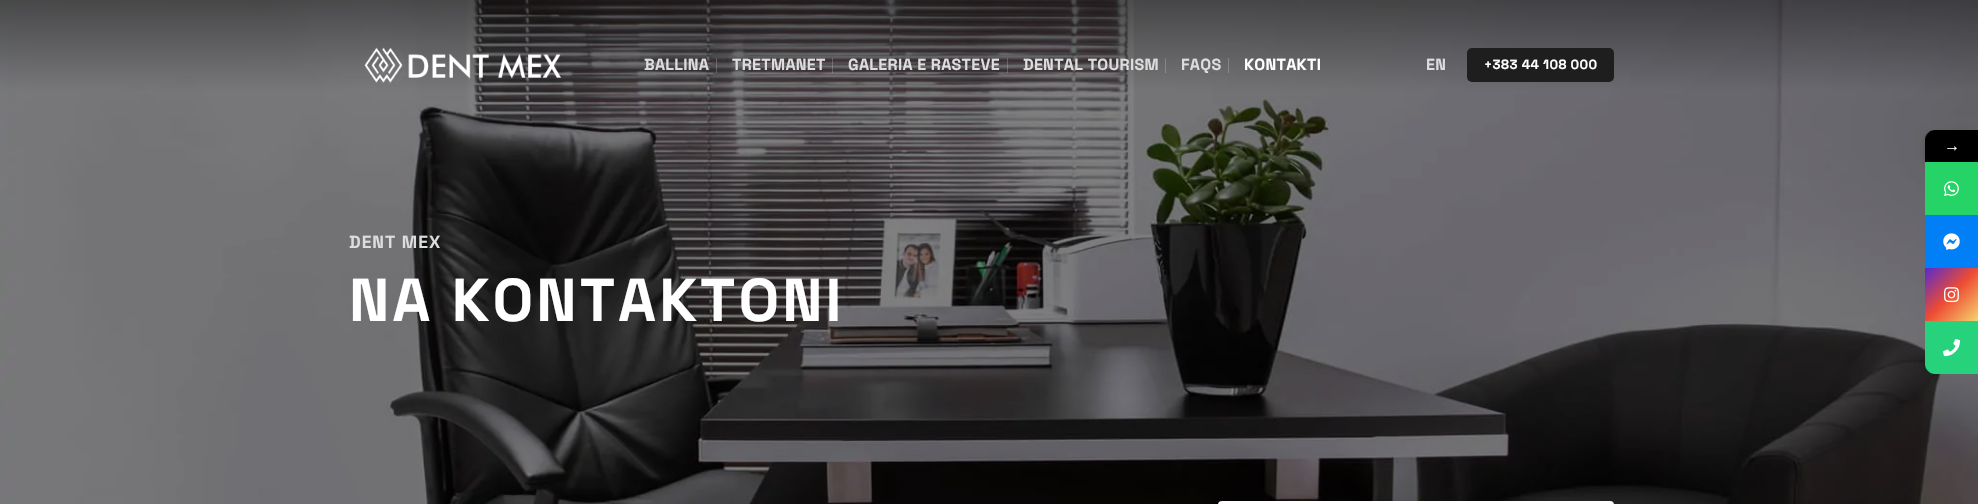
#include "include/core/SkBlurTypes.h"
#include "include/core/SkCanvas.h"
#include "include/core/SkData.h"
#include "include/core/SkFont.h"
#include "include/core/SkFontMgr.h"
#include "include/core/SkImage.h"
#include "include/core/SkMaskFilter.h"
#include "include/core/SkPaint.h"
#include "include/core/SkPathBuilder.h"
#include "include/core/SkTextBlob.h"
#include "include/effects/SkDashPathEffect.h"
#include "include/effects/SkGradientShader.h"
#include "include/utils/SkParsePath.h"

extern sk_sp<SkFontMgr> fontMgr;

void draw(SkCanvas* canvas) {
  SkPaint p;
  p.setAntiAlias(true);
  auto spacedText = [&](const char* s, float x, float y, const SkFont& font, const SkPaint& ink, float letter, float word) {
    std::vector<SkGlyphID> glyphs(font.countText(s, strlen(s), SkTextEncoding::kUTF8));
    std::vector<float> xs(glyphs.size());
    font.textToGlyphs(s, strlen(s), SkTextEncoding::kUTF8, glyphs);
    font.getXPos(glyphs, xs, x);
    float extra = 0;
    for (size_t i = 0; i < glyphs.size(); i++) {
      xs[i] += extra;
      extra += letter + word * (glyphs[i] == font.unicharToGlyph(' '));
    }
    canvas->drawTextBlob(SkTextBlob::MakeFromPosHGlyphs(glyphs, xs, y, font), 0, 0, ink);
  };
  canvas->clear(SK_ColorWHITE);
  canvas->drawImageRect(SkImages::DeferredFromEncodedData(SkData::MakeFromFileName("images/2.png")), SkRect::MakeLTRB(0, 0, 1978, 504), SkSamplingOptions());
  canvas->drawImageRect(SkImages::DeferredFromEncodedData(SkData::MakeFromFileName("images/1.png")), SkRect::MakeLTRB(364, 47, 561, 84), SkSamplingOptions());
  p.setColor(SkColorSetARGB(51, 255, 255, 255));
  canvas->drawRect(SkRect::MakeLTRB(716, 58, 717, 73), p);
  canvas->drawRect(SkRect::MakeLTRB(832, 58, 833, 73), p);
  canvas->drawRect(SkRect::MakeLTRB(1007, 58, 1008, 73), p);
  canvas->drawRect(SkRect::MakeLTRB(1165, 58, 1166, 73), p);
  canvas->drawRect(SkRect::MakeLTRB(1228, 58, 1229, 73), p);
  p.setColor(SkColorSetRGB(30, 30, 30));
  canvas->drawRoundRect(SkRect::MakeLTRB(1467, 48, 1614, 82), 5, 5, p);
  p.setColor(SK_ColorWHITE);
  canvas->drawRoundRect(SkRect::MakeLTRB(1218, 501, 1614, 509), 5, 5, p);
  p.setColor(SkColorSetARGB(41, 0, 0, 0));
  p.setMaskFilter(SkMaskFilter::MakeBlur(kNormal_SkBlurStyle, 3));
  canvas->drawRoundRect(SkRect::MakeLTRB(1925, 133, 1978, 165), 10, 10, p);
  p.setMaskFilter(nullptr);
  p.setColor(SK_ColorBLACK);
  canvas->drawPath(SkPathBuilder().moveTo(1935, 130).lineTo(1978, 130).lineTo(1978, 162).lineTo(1925, 162).lineTo(1925, 140).cubicTo(1925, 134.5f, 1929.5f, 130, 1935, 130).close().detach(), p);
  p.setColor(SkColorSetRGB(38, 211, 103));
  canvas->drawRect(SkRect::MakeLTRB(1925, 162, 1978, 215), p);
  canvas->drawImageRect(SkImages::DeferredFromEncodedData(SkData::MakeFromFileName("images/3.png")), SkRect::MakeLTRB(1944, 181, 1959, 196), SkSamplingOptions());
  p.setColor(SkColorSetRGB(0, 127, 247));
  canvas->drawRect(SkRect::MakeLTRB(1925, 215, 1978, 268), p);
  canvas->drawImageRect(SkImages::DeferredFromEncodedData(SkData::MakeFromFileName("images/4.png")), SkRect::MakeLTRB(1943, 233, 1960, 250), SkSamplingOptions());
  {
    const SkColor colors[] = {SkColorSetRGB(88, 43, 205), SkColorSetRGB(237, 76, 51), SkColorSetRGB(247, 211, 111)};
    const float stops[] = {0, 0.5f, 1};
    const SkPoint ends[] = {{1925, 268}, {1978, 321}};
    p.setShader(SkGradientShader::MakeLinear(ends, colors, stops, 3, SkTileMode::kClamp));
    p.setAlpha(255);
  }
  canvas->drawRect(SkRect::MakeLTRB(1925, 268, 1978, 321), p);
  canvas->drawImageRect(SkImages::DeferredFromEncodedData(SkData::MakeFromFileName("images/5.png")), SkRect::MakeLTRB(1944, 287, 1959, 303), SkSamplingOptions());
  p.setShader(nullptr);
  p.setColor(SkColorSetRGB(38, 211, 124));
  canvas->drawPath(SkPathBuilder().moveTo(1925, 321).lineTo(1978, 321).lineTo(1978, 374).lineTo(1935, 374).cubicTo(1929.5f, 374, 1925, 369.5f, 1925, 364).close().detach(), p);
  canvas->drawImageRect(SkImages::DeferredFromEncodedData(SkData::MakeFromFileName("images/6.png")), SkRect::MakeLTRB(1943, 339, 1960, 357), SkSamplingOptions());
  SkFont font1(fontMgr->matchFamilyStyle("Space Grotesk", SkFontStyle::Bold()), 16);
  font1.setSubpixel(true);
  p.setColor(SkColorSetRGB(221, 221, 222));
  spacedText("BALLINA", 644, 70, font1, p, 0.3f, 0);
  spacedText("TRETMANET", 732, 70, font1, p, 0.3f, 0);
  spacedText("GALERIA E RASTEVE", 848, 70, font1, p, 0.3f, 0);
  spacedText("DENTAL TOURISM", 1023, 70, font1, p, 0.3f, 0);
  spacedText("FAQS", 1181, 70, font1, p, 0.3f, 0);
  p.setColor(SK_ColorWHITE);
  spacedText("KONTAKTI", 1244, 70, font1, p, 0.3f, 0);
  p.setColor(SkColorSetRGB(221, 221, 222));
  spacedText("EN", 1426, 70, font1, p, 0.3f, 0);
  SkFont font2(fontMgr->matchFamilyStyle("Space Grotesk", SkFontStyle::Bold()), 13.25f);
  font2.setSubpixel(true);
  p.setColor(SK_ColorWHITE);
  spacedText("+383 44 108 000", 1484, 69, font2, p, 0.4f, 0);
  SkFont font3(fontMgr->matchFamilyStyle("Space Grotesk", SkFontStyle::Bold()), 17.5f);
  font3.setSubpixel(true);
  p.setColor(SkColorSetRGB(221, 221, 222));
  spacedText("DENT MEX", 349, 248, font3, p, 1, 0);
  SkFont font4(fontMgr->matchFamilyStyle("Space Grotesk", SkFontStyle::Bold()), 60.25f);
  font4.setSubpixel(true);
  p.setColor(SK_ColorWHITE);
  spacedText("NA KONTAKTONI", 349, 321, font4, p, 3, 0);
  SkFont font5(fontMgr->matchFamilyStyle("Liberation Serif", SkFontStyle::Normal()), 16);
  font5.setSubpixel(true);
  canvas->drawString("→", 1944, 151, font5, p);
}
